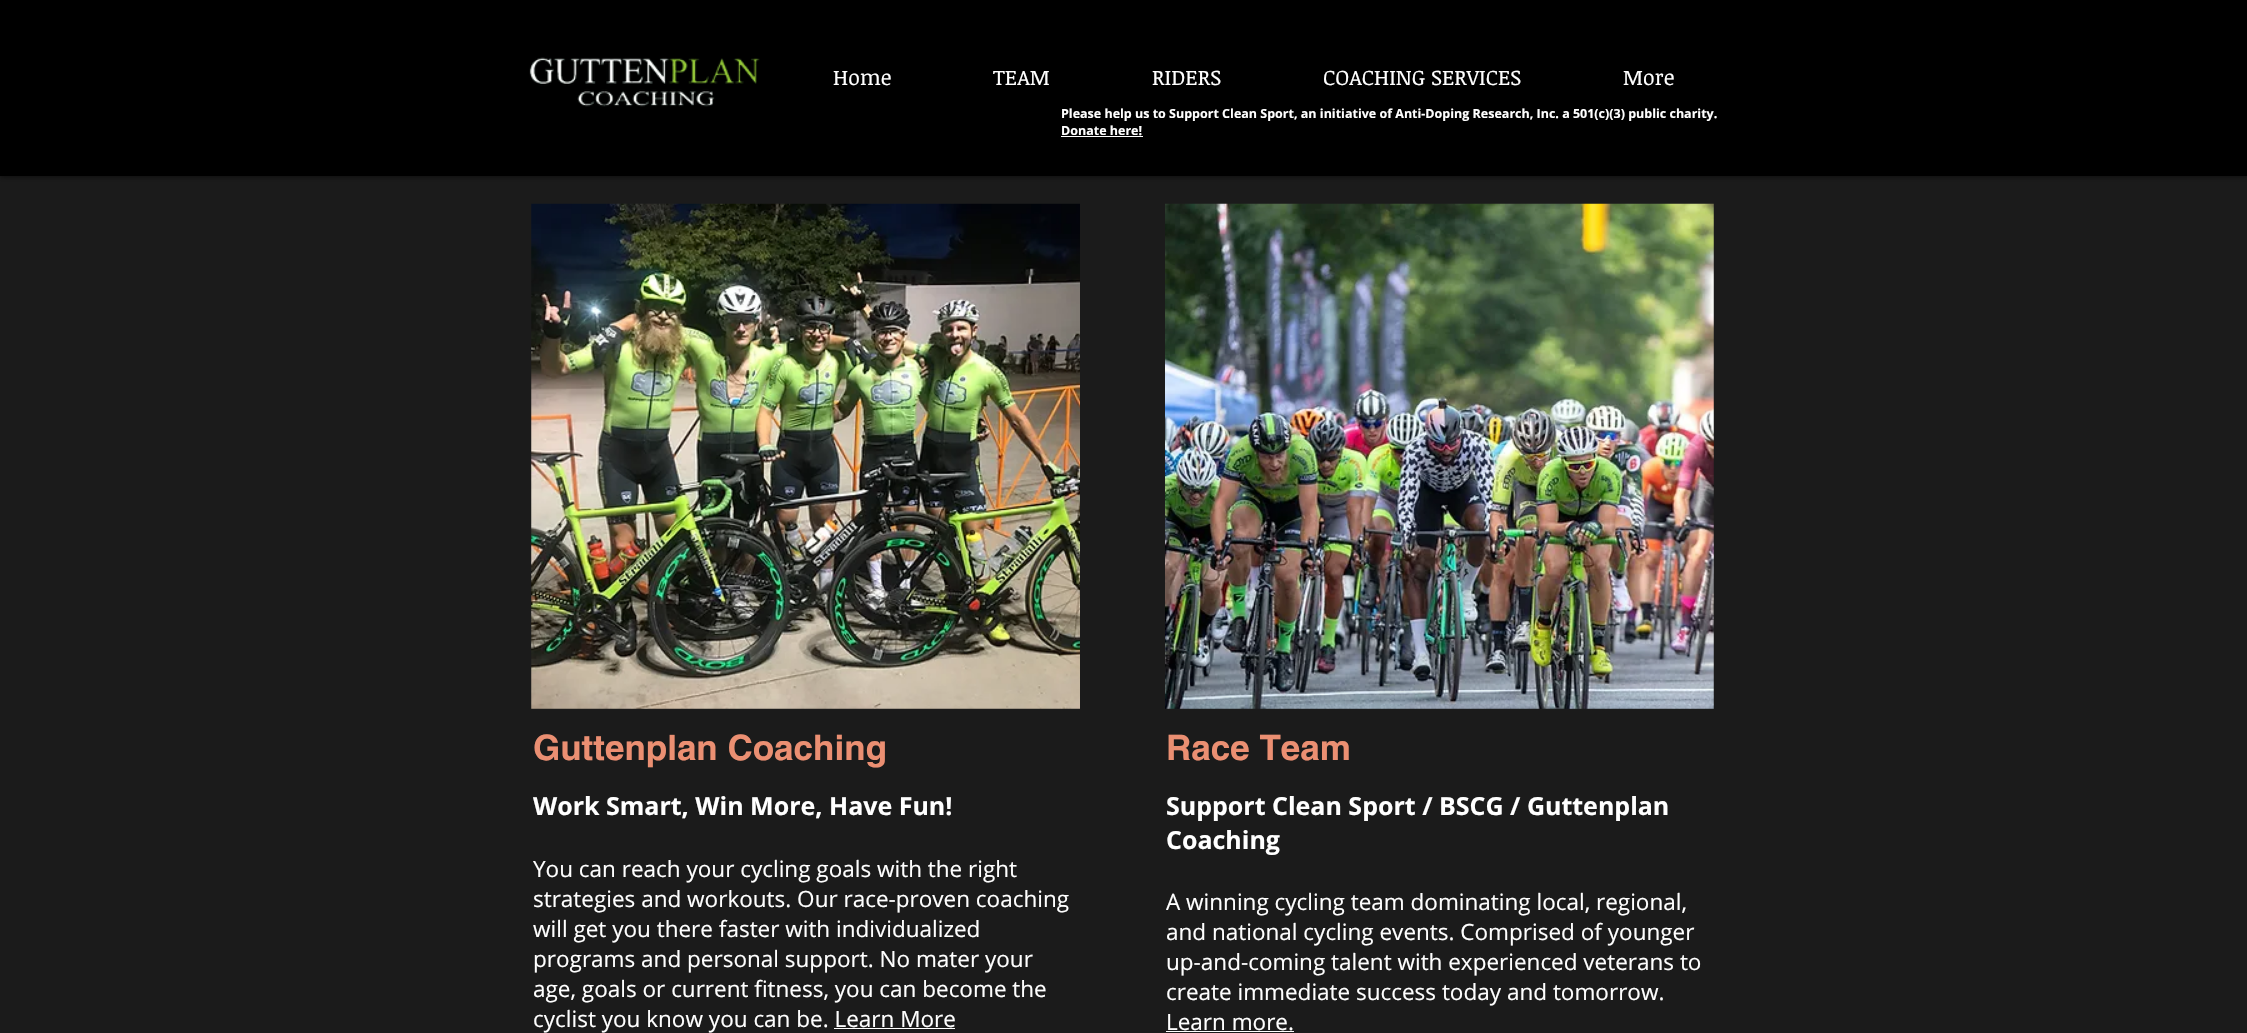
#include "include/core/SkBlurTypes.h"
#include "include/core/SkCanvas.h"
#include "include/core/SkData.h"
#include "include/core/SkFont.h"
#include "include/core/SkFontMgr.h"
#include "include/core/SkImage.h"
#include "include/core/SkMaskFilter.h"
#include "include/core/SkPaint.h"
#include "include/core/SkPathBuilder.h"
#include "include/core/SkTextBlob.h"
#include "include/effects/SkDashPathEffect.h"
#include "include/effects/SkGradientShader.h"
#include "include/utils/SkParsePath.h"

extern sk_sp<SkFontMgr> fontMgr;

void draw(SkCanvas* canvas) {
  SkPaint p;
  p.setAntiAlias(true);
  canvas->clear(SkColorSetRGB(27, 27, 27));
  p.setColor(SkColorSetARGB(179, 0, 0, 0));
  p.setMaskFilter(SkMaskFilter::MakeBlur(kNormal_SkBlurStyle, 3));
  canvas->drawRect(SkRect::MakeLTRB(0, 0, 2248, 176), p);
  p.setMaskFilter(nullptr);
  p.setColor(SK_ColorBLACK);
  canvas->drawRect(SkRect::MakeLTRB(0, 0, 2247, 176), p);
  canvas->drawImageRect(SkImages::DeferredFromEncodedData(SkData::MakeFromFileName("images/1.png")), SkRect::MakeLTRB(529, 57, 760, 107), SkSamplingOptions());
  p.setColor(SK_ColorWHITE);
  canvas->drawRect(SkRect::MakeLTRB(1061, 136, 1143, 137), p);
  canvas->drawImageRect(SkImages::DeferredFromEncodedData(SkData::MakeFromFileName("images/2.png")), SkRect::MakeLTRB(531, 203, 1080, 709), SkSamplingOptions());
  canvas->drawRect(SkRect::MakeLTRB(834, 1028, 955, 1029), p);
  canvas->drawImageRect(SkImages::DeferredFromEncodedData(SkData::MakeFromFileName("images/3.png")), SkRect::MakeLTRB(1165, 203, 1714, 709), SkSamplingOptions());
  canvas->drawRect(SkRect::MakeLTRB(1166, 1031, 1294, 1032), p);
  SkFont font1(fontMgr->matchFamilyStyle("Noticia Text", SkFontStyle::Normal()), 21.25f);
  font1.setSubpixel(true);
  canvas->drawString("Home", 833, 85, font1, p);
  canvas->drawString("TEAM", 993, 85, font1, p);
  canvas->drawString("RIDERS", 1152, 85, font1, p);
  canvas->drawString("COACHING SERVICES", 1323, 85, font1, p);
  canvas->drawString("More", 1623, 85, font1, p);
  SkFont font2(fontMgr->matchFamilyStyle("Open Sans", SkFontStyle::Bold()), 12.5f);
  font2.setSubpixel(true);
  canvas->drawString("Please help us to Support Clean Sport, an initiative of Anti-Doping Research, Inc. a 501(c)(3) public charity.", 1061, 118, font2, p);
  canvas->drawString("Donate here!", 1061, 135, font2, p);
  SkFont font3(fontMgr->matchFamilyStyle("helvetica", SkFontStyle::Bold()), 35);
  font3.setSubpixel(true);
  p.setColor(SkColorSetRGB(235, 143, 114));
  canvas->drawString("Guttenplan Coaching", 533, 760, font3, p);
  SkFont font4(fontMgr->matchFamilyStyle("Open Sans", SkFontStyle::Bold()), 25);
  font4.setSubpixel(true);
  p.setColor(SK_ColorWHITE);
  canvas->drawString("Work Smart, Win More, Have Fun!", 533, 815, font4, p);
  SkFont font5(fontMgr->matchFamilyStyle("Open Sans", SkFontStyle::Normal()), 22.5f);
  font5.setSubpixel(true);
  canvas->drawString("You can reach your cycling goals with the right", 533, 877, font5, p);
  canvas->drawString("strategies and workouts. Our race-proven coaching", 533, 907, font5, p);
  canvas->drawString("will get you there faster with individualized", 533, 937, font5, p);
  canvas->drawString("programs and personal support. No mater your", 533, 967, font5, p);
  canvas->drawString("age, goals or current fitness, you can become the", 533, 997, font5, p);
  canvas->drawString("cyclist you know you can be. Learn More", 533, 1027, font5, p);
  p.setColor(SkColorSetRGB(235, 143, 114));
  canvas->drawString("Race Team", 1166, 760, font3, p);
  p.setColor(SK_ColorWHITE);
  canvas->drawString("Support Clean Sport / BSCG / Guttenplan", 1166, 815, font4, p);
  canvas->drawString("Coaching", 1166, 849, font4, p);
  canvas->drawString("A winning cycling team dominating local, regional,", 1166, 910, font5, p);
  canvas->drawString("and national cycling events. Comprised of younger", 1166, 940, font5, p);
  canvas->drawString("up-and-coming talent with experienced veterans to", 1166, 970, font5, p);
  canvas->drawString("create immediate success today and tomorrow.", 1166, 1000, font5, p);
  canvas->drawString("Learn more.", 1166, 1030, font5, p);
}
